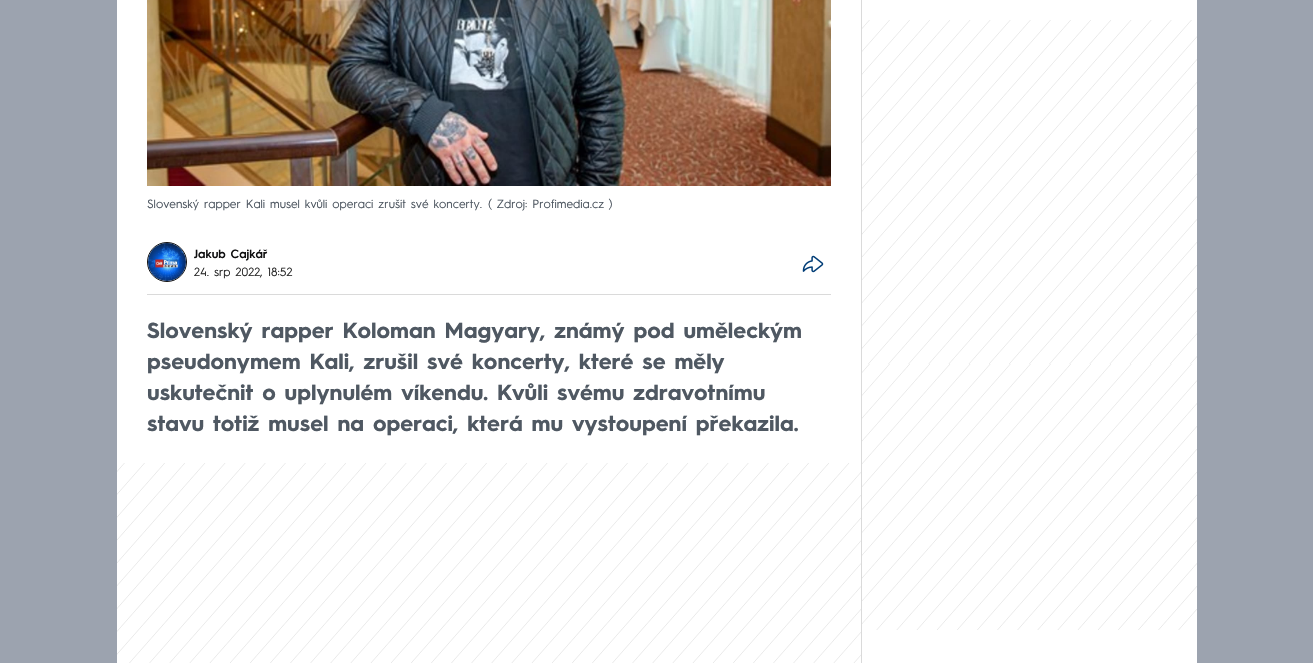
#include "include/core/SkBlurTypes.h"
#include "include/core/SkCanvas.h"
#include "include/core/SkData.h"
#include "include/core/SkFont.h"
#include "include/core/SkFontMgr.h"
#include "include/core/SkImage.h"
#include "include/core/SkMaskFilter.h"
#include "include/core/SkPaint.h"
#include "include/core/SkPathBuilder.h"
#include "include/core/SkTextBlob.h"
#include "include/effects/SkDashPathEffect.h"
#include "include/effects/SkGradientShader.h"
#include "include/utils/SkParsePath.h"

extern sk_sp<SkFontMgr> fontMgr;

void draw(SkCanvas* canvas) {
  SkPaint p;
  p.setAntiAlias(true);
  canvas->clear(SkColorSetRGB(156, 163, 175));
  p.setColor(SK_ColorWHITE);
  canvas->drawRect(SkRect::MakeLTRB(117, 0, 1197, 663), p);
  canvas->drawImageRect(SkImages::DeferredFromEncodedData(SkData::MakeFromFileName("images/1.png")), SkRect::MakeLTRB(147, 0, 831, 186), SkSamplingOptions());
  p.setStyle(SkPaint::kStroke_Style);
  p.setStrokeWidth(1);
  p.setColor(SkColorSetRGB(15, 15, 16));
  canvas->drawCircle(167, 262, 19.5f, p);
  canvas->drawImageRect(SkImages::DeferredFromEncodedData(SkData::MakeFromFileName("images/2.png")), SkRect::MakeLTRB(148, 243, 186, 281), SkSamplingOptions());
  canvas->drawImageRect(SkImages::DeferredFromEncodedData(SkData::MakeFromFileName("images/3.png")), SkRect::MakeLTRB(802, 255, 824, 273), SkSamplingOptions());
  p.setStyle(SkPaint::kFill_Style);
  p.setColor(SkColorSetRGB(218, 218, 218));
  canvas->drawRect(SkRect::MakeLTRB(147, 294, 831, 295), p);
  canvas->drawImageRect(SkImages::DeferredFromEncodedData(SkData::MakeFromFileName("images/4.png")), SkRect::MakeLTRB(117, 463, 861, 663), SkSamplingOptions());
  canvas->drawRect(SkRect::MakeLTRB(861, 0, 862, 663), p);
  canvas->drawImageRect(SkImages::DeferredFromEncodedData(SkData::MakeFromFileName("images/5.png")), SkRect::MakeLTRB(862, 20, 1197, 630), SkSamplingOptions());
  SkFont font1(fontMgr->matchFamilyStyle("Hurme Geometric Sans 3", SkFontStyle::Normal()), 12);
  font1.setSubpixel(true);
  p.setColor(SkColorSetRGB(79, 88, 98));
  canvas->drawString("Slovenský rapper Kali musel kvůli operaci zrušit své koncerty.", 147, 208, font1, p);
  canvas->drawString("( Zdroj: Profimedia.cz )", 488, 208, font1, p);
  SkFont font2(fontMgr->matchFamilyStyle("Hurme Geometric Sans 3", SkFontStyle(600, SkFontStyle::kNormal_Width, SkFontStyle::kUpright_Slant)), 12);
  font2.setSubpixel(true);
  p.setColor(SkColorSetRGB(15, 15, 16));
  canvas->drawString("Jakub Cajkář", 194, 258, font2, p);
  p.setColor(SkColorSetRGB(43, 43, 43));
  canvas->drawString("24. srp 2022, 18:52", 194, 276, font1, p);
  SkFont font3(fontMgr->matchFamilyStyle("Hurme Geometric Sans 3", SkFontStyle::Bold()), 22);
  font3.setSubpixel(true);
  p.setColor(SkColorSetRGB(79, 88, 98));
  canvas->drawString("Slovenský rapper Koloman Magyary, známý pod uměleckým", 147, 338, font3, p);
  canvas->drawString("pseudonymem Kali, zrušil své koncerty, které se měly", 147, 369, font3, p);
  canvas->drawString("uskutečnit o uplynulém víkendu. Kvůli svému zdravotnímu", 147, 400, font3, p);
  canvas->drawString("stavu totiž musel na operaci, která mu vystoupení překazila.", 147, 431, font3, p);
}
